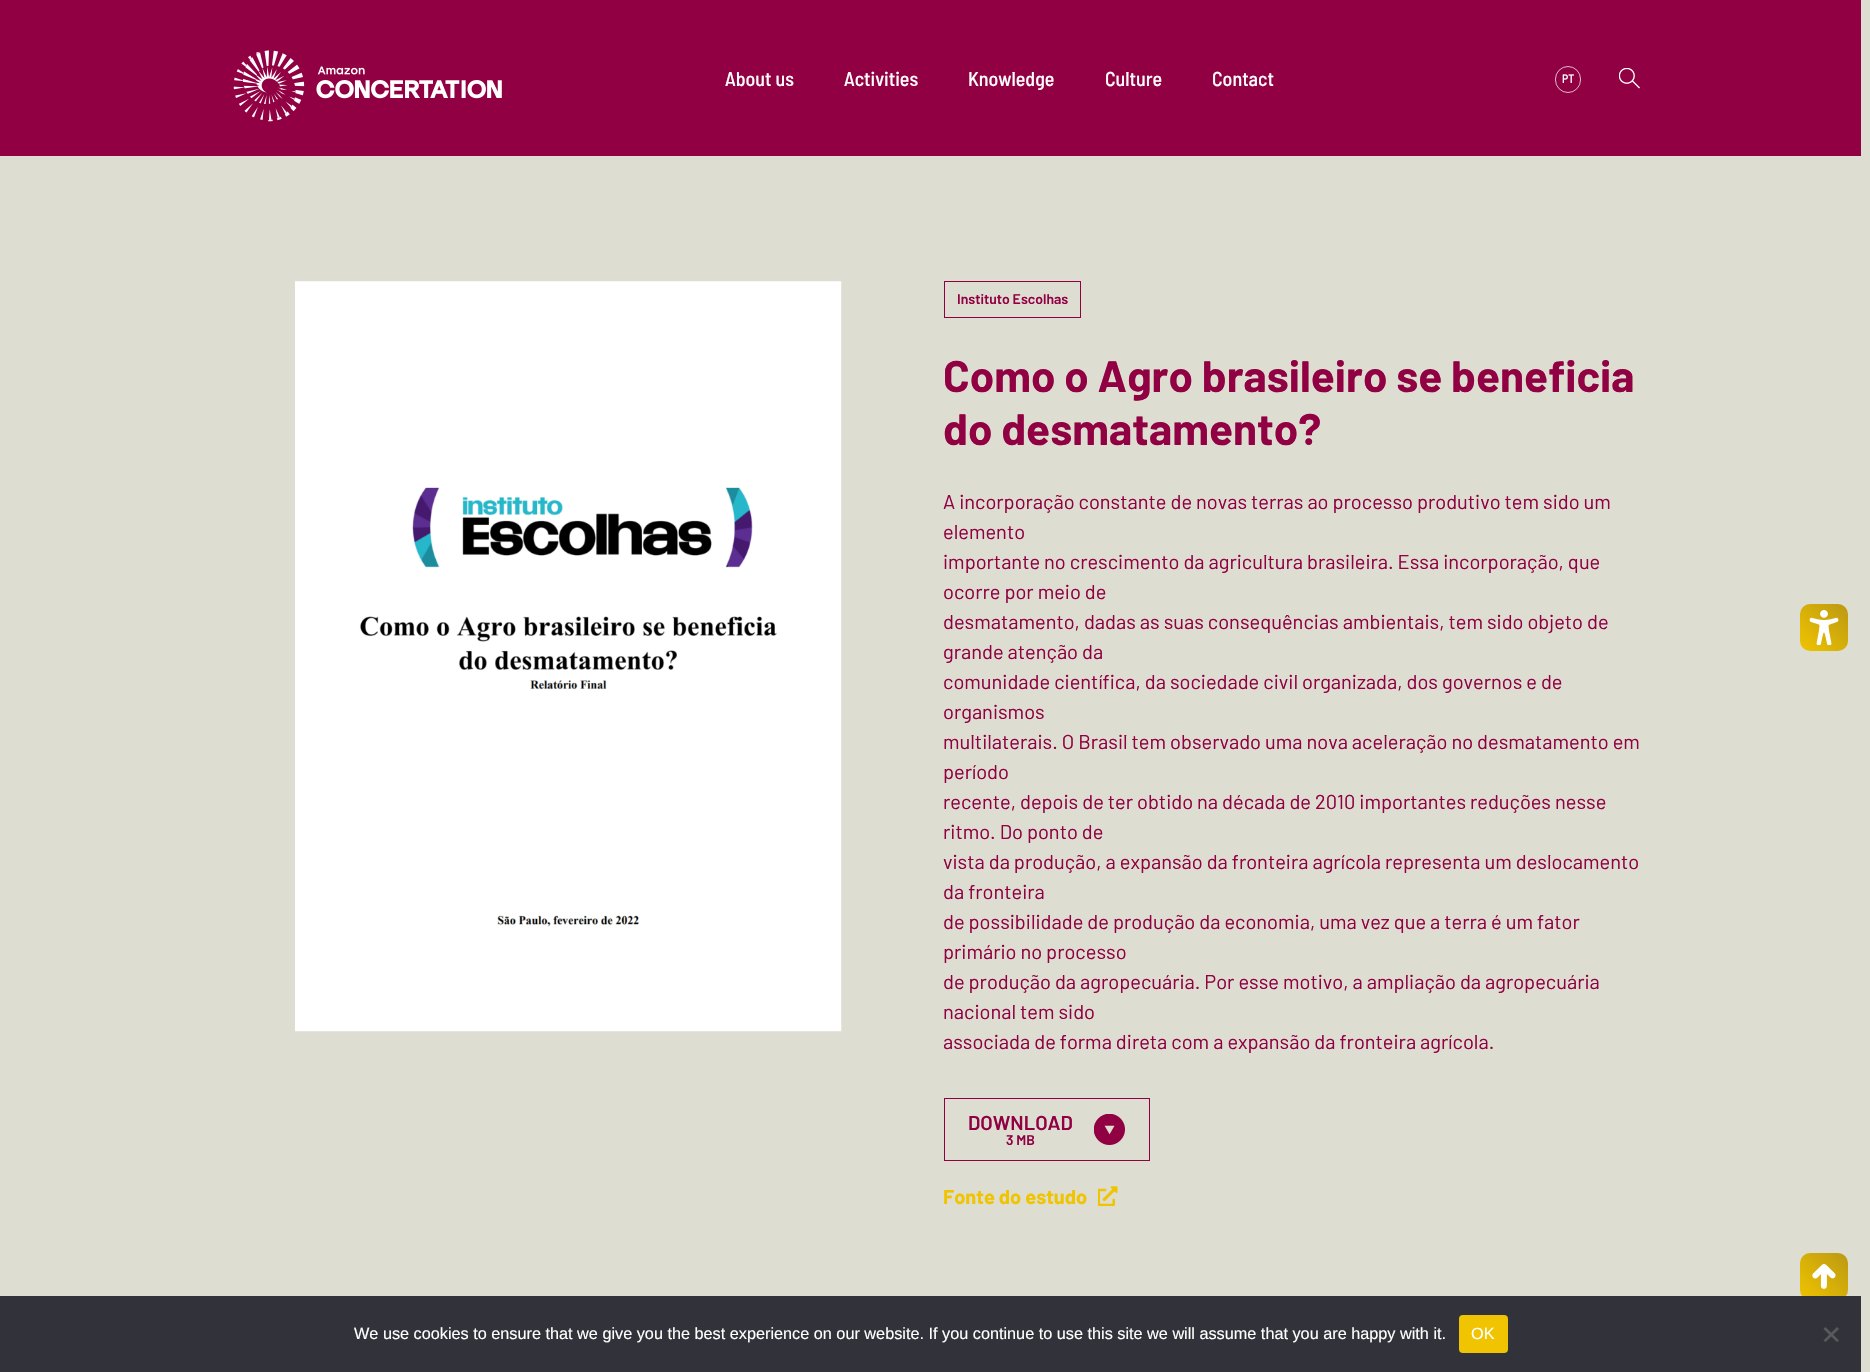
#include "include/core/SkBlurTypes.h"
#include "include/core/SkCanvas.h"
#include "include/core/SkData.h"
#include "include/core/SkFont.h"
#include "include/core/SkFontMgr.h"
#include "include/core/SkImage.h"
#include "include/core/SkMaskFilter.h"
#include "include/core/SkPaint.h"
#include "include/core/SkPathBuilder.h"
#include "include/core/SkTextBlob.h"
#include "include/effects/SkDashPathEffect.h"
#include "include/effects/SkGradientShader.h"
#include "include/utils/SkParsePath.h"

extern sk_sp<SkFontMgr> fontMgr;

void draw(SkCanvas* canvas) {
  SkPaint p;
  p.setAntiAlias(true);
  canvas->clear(SkColorSetRGB(222, 221, 209));
  p.setColor(SkColorSetRGB(144, 0, 66));
  canvas->drawRect(SkRect::MakeLTRB(0, 0, 1861, 156), p);
  canvas->drawImageRect(SkImages::DeferredFromEncodedData(SkData::MakeFromFileName("images/1.png")), SkRect::MakeLTRB(233, 50, 502, 122), SkSamplingOptions());
  p.setStyle(SkPaint::kStroke_Style);
  p.setStrokeWidth(1);
  p.setColor(SkColorSetRGB(225, 187, 205));
  canvas->drawRoundRect(SkRect::MakeLTRB(1555.5f, 66.5f, 1580.5f, 92.5f), 12.5f, 12.5f, p);
  canvas->drawImageRect(SkImages::DeferredFromEncodedData(SkData::MakeFromFileName("images/2.png")), SkRect::MakeLTRB(1619, 68, 1640, 89), SkSamplingOptions());
  canvas->drawImageRect(SkImages::DeferredFromEncodedData(SkData::MakeFromFileName("images/3.png")), SkRect::MakeLTRB(295, 281, 842, 1032), SkSamplingOptions());
  p.setColor(SkColorSetRGB(144, 0, 66));
  canvas->drawRect(SkRect::MakeLTRB(944.5f, 281.5f, 1080.5f, 317.5f), p);
  canvas->drawRect(SkRect::MakeLTRB(944.5f, 1098.5f, 1149.5f, 1160.5f), p);
  canvas->drawImageRect(SkImages::DeferredFromEncodedData(SkData::MakeFromFileName("images/4.png")), SkRect::MakeLTRB(1094, 1114, 1125, 1145), SkSamplingOptions());
  canvas->drawImageRect(SkImages::DeferredFromEncodedData(SkData::MakeFromFileName("images/5.png")), SkRect::MakeLTRB(1098, 1186, 1118, 1206), SkSamplingOptions());
  p.setStyle(SkPaint::kFill_Style);
  {
    const SkColor colors[] = {SkColorSetRGB(240, 196, 0), SkColorSetRGB(187, 153, 18)};
    const float stops[] = {0, 1};
    const SkPoint ends[] = {{1800, 651}, {1848, 604}};
    p.setShader(SkGradientShader::MakeLinear(ends, colors, stops, 2, SkTileMode::kClamp));
    p.setAlpha(255);
  }
  canvas->drawRoundRect(SkRect::MakeLTRB(1800, 604, 1848, 651), 10, 10, p);
  canvas->drawImageRect(SkImages::DeferredFromEncodedData(SkData::MakeFromFileName("images/6.png")), SkRect::MakeLTRB(1809, 610, 1839, 645), SkSamplingOptions());
  {
    const SkColor colors[] = {SkColorSetRGB(240, 196, 0), SkColorSetRGB(187, 153, 18)};
    const float stops[] = {0, 1};
    const SkPoint ends[] = {{1800, 1300}, {1848, 1253}};
    p.setShader(SkGradientShader::MakeLinear(ends, colors, stops, 2, SkTileMode::kClamp));
    p.setAlpha(255);
  }
  canvas->drawRoundRect(SkRect::MakeLTRB(1800, 1253, 1848, 1300), 10, 10, p);
  canvas->drawImageRect(SkImages::DeferredFromEncodedData(SkData::MakeFromFileName("images/7.png")), SkRect::MakeLTRB(1812, 1264, 1836, 1289), SkSamplingOptions());
  p.setShader(nullptr);
  p.setColor(SkColorSetRGB(50, 50, 58));
  canvas->drawRect(SkRect::MakeLTRB(0, 1296, 1861, 1372), p);
  p.setColor(SkColorSetRGB(240, 196, 0));
  canvas->drawRoundRect(SkRect::MakeLTRB(1459, 1315, 1508, 1353), 4, 4, p);
  p.setColor(SkColorSetRGB(89, 89, 93));
  canvas->drawPath(SkPathBuilder().moveTo(1837, 1327).lineTo(1839, 1329).lineTo(1825.5f, 1342).lineTo(1823.5f, 1340.5f).close().detach(), p);
  canvas->drawPath(SkPathBuilder().moveTo(1823.5f, 1329).lineTo(1825.5f, 1327).lineTo(1839, 1340.5f).lineTo(1837, 1342).close().detach(), p);
  SkFont font1(fontMgr->matchFamilyStyle("Barlow Semi Condensed", SkFontStyle(500, SkFontStyle::kNormal_Width, SkFontStyle::kUpright_Slant)), 20);
  font1.setSubpixel(true);
  p.setColor(SK_ColorWHITE);
  canvas->drawString("About us", 725, 86, font1, p);
  canvas->drawString("Activities", 844, 86, font1, p);
  canvas->drawString("Knowledge", 968, 86, font1, p);
  canvas->drawString("Culture", 1105, 86, font1, p);
  canvas->drawString("Contact", 1212, 86, font1, p);
  SkFont font2(fontMgr->matchFamilyStyle("Barlow Semi Condensed", SkFontStyle(500, SkFontStyle::kNormal_Width, SkFontStyle::kUpright_Slant)), 12);
  font2.setSubpixel(true);
  canvas->drawString("PT", 1562, 83, font2, p);
  SkFont font3(fontMgr->matchFamilyStyle("Barlow", SkFontStyle(600, SkFontStyle::kNormal_Width, SkFontStyle::kUpright_Slant)), 14);
  font3.setSubpixel(true);
  p.setColor(SkColorSetRGB(144, 0, 66));
  canvas->drawString("Instituto Escolhas", 957, 304, font3, p);
  SkFont font4(fontMgr->matchFamilyStyle("Barlow", SkFontStyle::Bold()), 44);
  font4.setSubpixel(true);
  canvas->drawString("Como o Agro brasileiro se beneficia", 943, 392, font4, p);
  canvas->drawString("do desmatamento?", 943, 445, font4, p);
  SkFont font5(fontMgr->matchFamilyStyle("Barlow", SkFontStyle::Normal()), 20);
  font5.setSubpixel(true);
  canvas->drawString("A incorporação constante de novas terras ao processo produtivo tem sido um", 943, 509, font5, p);
  canvas->drawString("elemento", 943, 539, font5, p);
  canvas->drawString("importante no crescimento da agricultura brasileira. Essa incorporação, que", 943, 569, font5, p);
  canvas->drawString("ocorre por meio de", 943, 599, font5, p);
  canvas->drawString("desmatamento, dadas as suas consequências ambientais, tem sido objeto de", 943, 629, font5, p);
  canvas->drawString("grande atenção da", 943, 659, font5, p);
  canvas->drawString("comunidade científica, da sociedade civil organizada, dos governos e de", 943, 689, font5, p);
  canvas->drawString("organismos", 943, 719, font5, p);
  canvas->drawString("multilaterais. O Brasil tem observado uma nova aceleração no desmatamento em", 943, 749, font5, p);
  canvas->drawString("período", 943, 779, font5, p);
  canvas->drawString("recente, depois de ter obtido na década de 2010 importantes reduções nesse", 943, 809, font5, p);
  canvas->drawString("ritmo. Do ponto de", 943, 839, font5, p);
  canvas->drawString("vista da produção, a expansão da fronteira agrícola representa um deslocamento", 943, 869, font5, p);
  canvas->drawString("da fronteira", 943, 899, font5, p);
  canvas->drawString("de possibilidade de produção da economia, uma vez que a terra é um fator", 943, 929, font5, p);
  canvas->drawString("primário no processo", 943, 959, font5, p);
  canvas->drawString("de produção da agropecuária. Por esse motivo, a ampliação da agropecuária", 943, 989, font5, p);
  canvas->drawString("nacional tem sido", 943, 1019, font5, p);
  canvas->drawString("associada de forma direta com a expansão da fronteira agrícola.", 943, 1049, font5, p);
  SkFont font6(fontMgr->matchFamilyStyle("Barlow", SkFontStyle(600, SkFontStyle::kNormal_Width, SkFontStyle::kUpright_Slant)), 20);
  font6.setSubpixel(true);
  canvas->drawString("DOWNLOAD", 968, 1130, font6, p);
  canvas->drawString("3 MB", 1006, 1145, font3, p);
  SkFont font7(fontMgr->matchFamilyStyle("Barlow", SkFontStyle::Bold()), 20);
  font7.setSubpixel(true);
  p.setColor(SkColorSetRGB(240, 196, 0));
  canvas->drawString("Fonte do estudo", 943, 1204, font7, p);
  SkFont font8(fontMgr->matchFamilyStyle("Liberation Sans", SkFontStyle::Normal()), 16.25f);
  font8.setSubpixel(true);
  p.setColor(SK_ColorWHITE);
  canvas->drawString("We use cookies to ensure that we give you the best experience on our website. If you continue to use this site we will assume that you are happy with it.", 354, 1339, font8, p);
  canvas->drawString("OK", 1471, 1339, font8, p);
}
